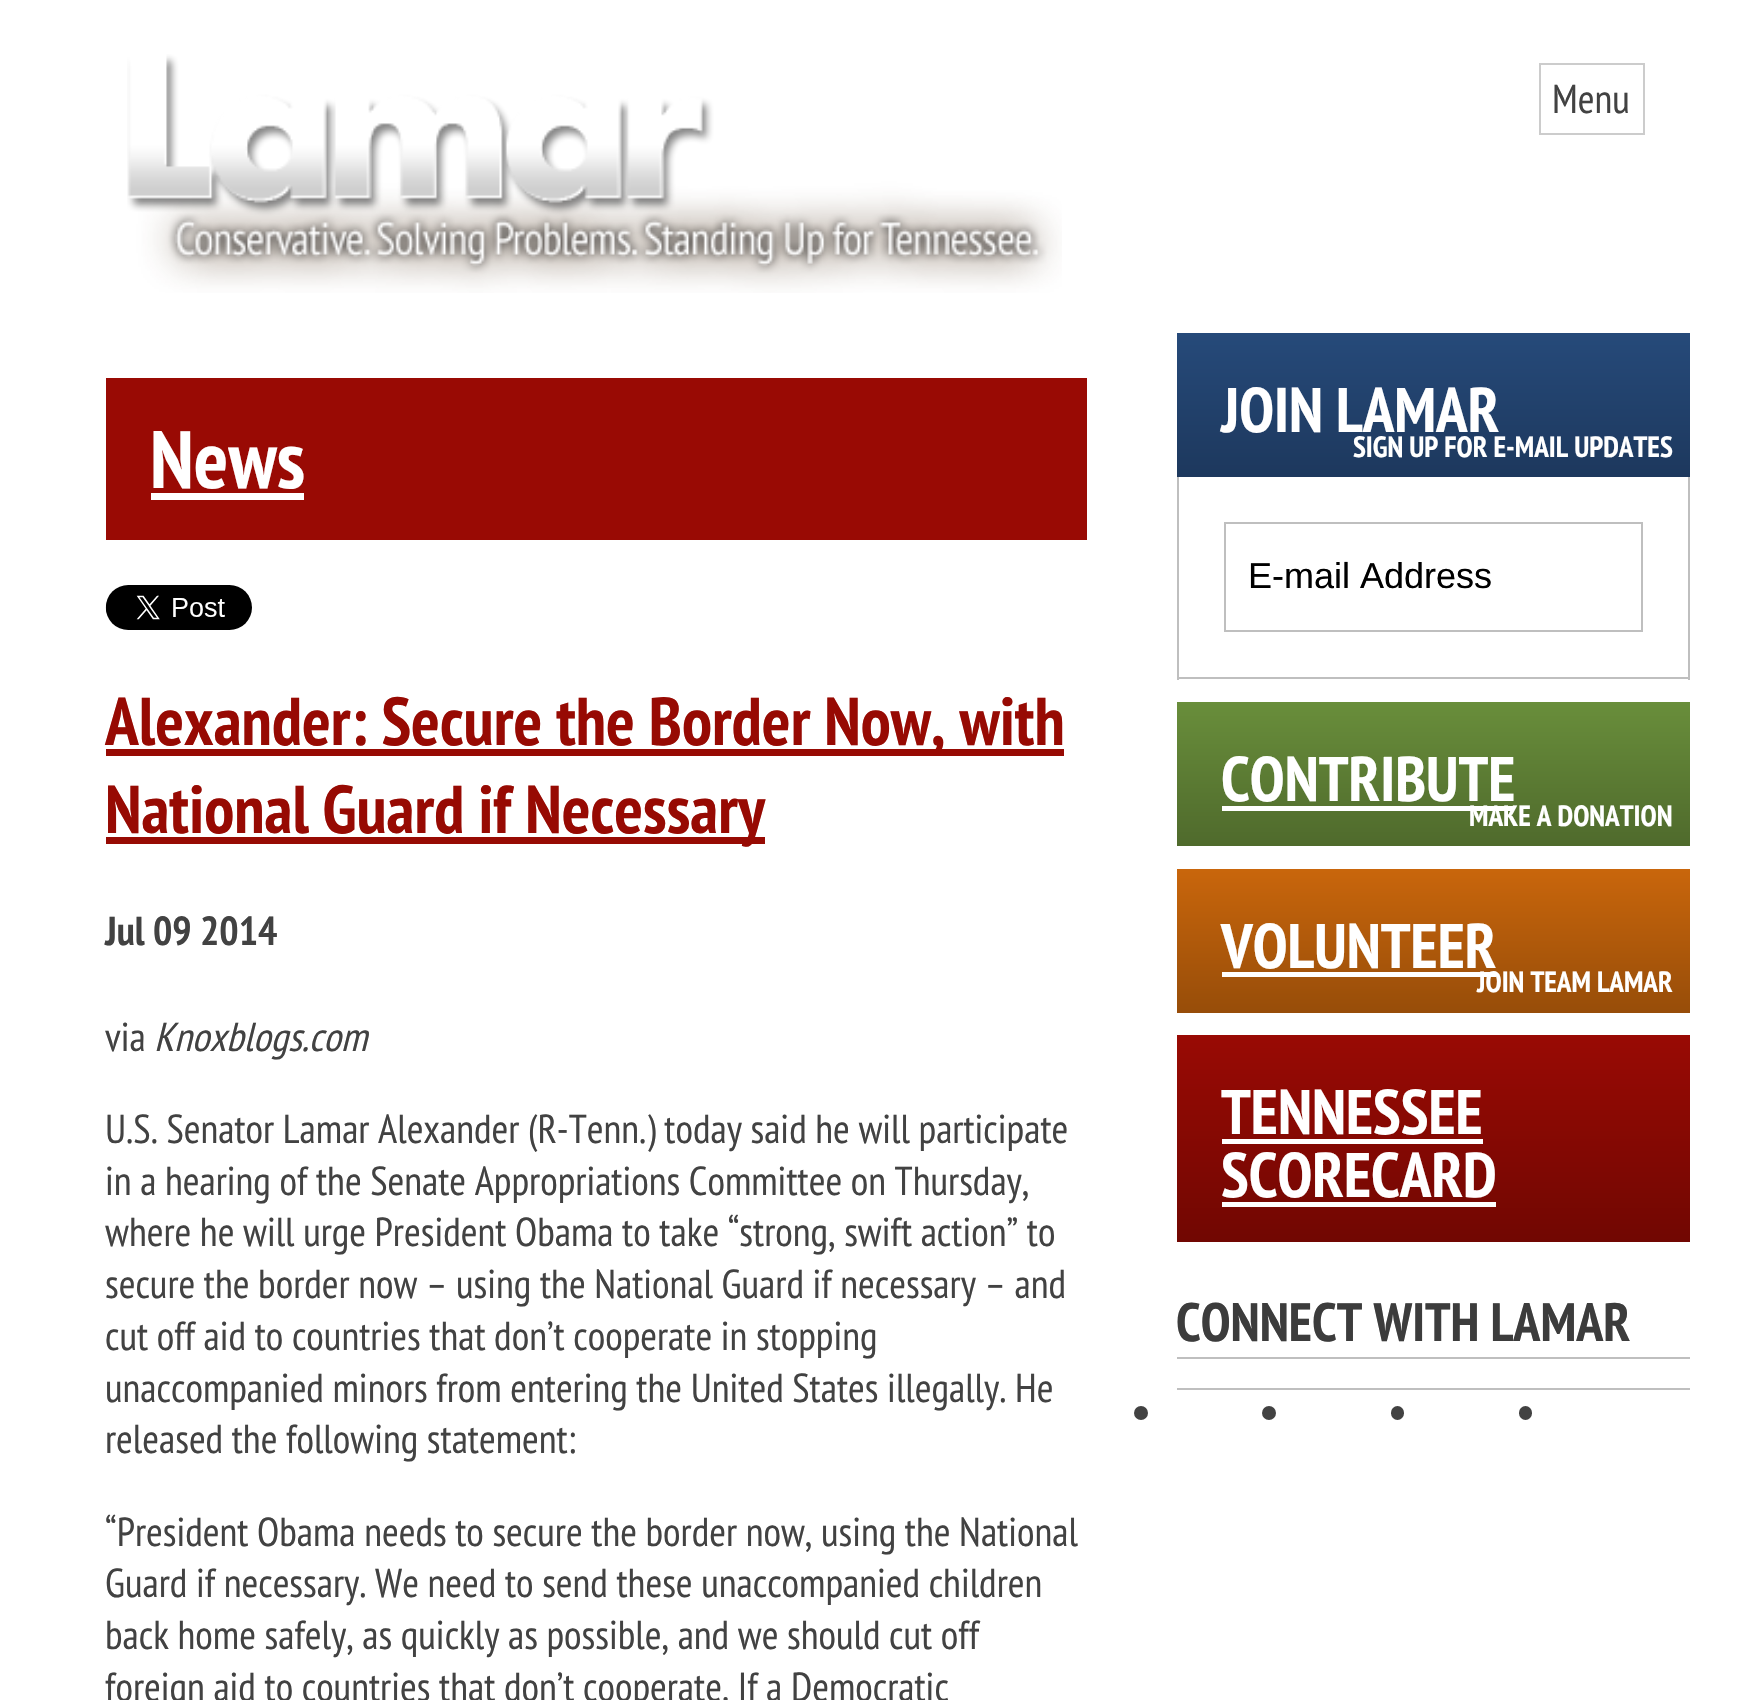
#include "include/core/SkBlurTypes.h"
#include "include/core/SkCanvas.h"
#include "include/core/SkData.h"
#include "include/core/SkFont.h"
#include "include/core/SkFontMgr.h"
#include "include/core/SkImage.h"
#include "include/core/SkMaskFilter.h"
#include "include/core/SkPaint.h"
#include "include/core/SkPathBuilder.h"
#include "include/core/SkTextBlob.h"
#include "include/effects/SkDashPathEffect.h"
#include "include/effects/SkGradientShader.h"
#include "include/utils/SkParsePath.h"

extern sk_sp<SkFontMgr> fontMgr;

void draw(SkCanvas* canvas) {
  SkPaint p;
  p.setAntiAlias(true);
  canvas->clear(SK_ColorWHITE);
  canvas->drawImageRect(SkImages::DeferredFromEncodedData(SkData::MakeFromFileName("images/1.png")), SkRect::MakeLTRB(127, 54, 1062, 293), SkSamplingOptions());
  p.setStyle(SkPaint::kStroke_Style);
  p.setStrokeWidth(2);
  p.setColor(SkColorSetRGB(204, 204, 204));
  canvas->drawRect(SkRect::MakeLTRB(1540, 64, 1644, 134), p);
  p.setStyle(SkPaint::kFill_Style);
  p.setColor(SkColorSetRGB(153, 10, 4));
  canvas->drawRect(SkRect::MakeLTRB(106, 378, 1087, 540), p);
  p.setColor(SK_ColorWHITE);
  canvas->drawRect(SkRect::MakeLTRB(151, 493, 304, 500), p);
  canvas->drawImageRect(SkImages::DeferredFromEncodedData(SkData::MakeFromFileName("images/2.png")), SkRect::MakeLTRB(105, 585, 252, 630), SkSamplingOptions());
  p.setColor(SkColorSetRGB(151, 10, 3));
  canvas->drawRect(SkRect::MakeLTRB(106, 749, 1064, 756), p);
  canvas->drawRect(SkRect::MakeLTRB(106, 837, 765, 844), p);
  {
    const SkColor colors[] = {SkColorSetRGB(38, 74, 122), SkColorSetRGB(29, 56, 93)};
    const float stops[] = {0, 1};
    const SkPoint ends[] = {{1433, 333}, {1433, 477}};
    p.setShader(SkGradientShader::MakeLinear(ends, colors, stops, 2, SkTileMode::kClamp));
    p.setAlpha(255);
  }
  canvas->drawRect(SkRect::MakeLTRB(1177, 333, 1690, 477), p);
  p.setShader(nullptr);
  p.setColor(SkColorSetRGB(191, 191, 191));
  canvas->drawRect(SkRect::MakeLTRB(1688, 477, 1690, 680), p);
  canvas->drawRect(SkRect::MakeLTRB(1177, 677, 1690, 679), p);
  canvas->drawRect(SkRect::MakeLTRB(1177, 477, 1179, 680), p);
  p.setStyle(SkPaint::kStroke_Style);
  canvas->drawRect(SkRect::MakeLTRB(1225, 523, 1642, 631), p);
  p.setStyle(SkPaint::kFill_Style);
  {
    const SkColor colors[] = {SkColorSetRGB(105, 142, 59), SkColorSetRGB(79, 106, 44)};
    const float stops[] = {0, 1};
    const SkPoint ends[] = {{1433, 702}, {1433, 846}};
    p.setShader(SkGradientShader::MakeLinear(ends, colors, stops, 2, SkTileMode::kClamp));
    p.setAlpha(255);
  }
  canvas->drawRect(SkRect::MakeLTRB(1177, 702, 1690, 846), p);
  p.setShader(nullptr);
  p.setColor(SK_ColorWHITE);
  canvas->drawRect(SkRect::MakeLTRB(1222, 806, 1514, 811), p);
  {
    const SkColor colors[] = {SkColorSetRGB(201, 102, 12), SkColorSetRGB(151, 77, 9)};
    const float stops[] = {0, 1};
    const SkPoint ends[] = {{1433, 869}, {1433, 1013}};
    p.setShader(SkGradientShader::MakeLinear(ends, colors, stops, 2, SkTileMode::kClamp));
    p.setAlpha(255);
  }
  canvas->drawRect(SkRect::MakeLTRB(1177, 869, 1690, 1013), p);
  p.setShader(nullptr);
  p.setColor(SK_ColorWHITE);
  canvas->drawRect(SkRect::MakeLTRB(1222, 972, 1496, 977), p);
  {
    const SkColor colors[] = {SkColorSetRGB(153, 10, 4), SkColorSetRGB(113, 7, 2)};
    const float stops[] = {0, 1};
    const SkPoint ends[] = {{1433, 1035}, {1433, 1242}};
    p.setShader(SkGradientShader::MakeLinear(ends, colors, stops, 2, SkTileMode::kClamp));
    p.setAlpha(255);
  }
  canvas->drawRect(SkRect::MakeLTRB(1177, 1035, 1690, 1242), p);
  p.setShader(nullptr);
  p.setColor(SK_ColorWHITE);
  canvas->drawRect(SkRect::MakeLTRB(1222, 1139, 1483, 1144), p);
  canvas->drawRect(SkRect::MakeLTRB(1222, 1202, 1496, 1207), p);
  p.setColor(SkColorSetRGB(191, 191, 191));
  canvas->drawRect(SkRect::MakeLTRB(1177, 1357, 1690, 1359), p);
  canvas->drawRect(SkRect::MakeLTRB(1177, 1388, 1690, 1390), p);
  p.setColor(SkColorSetRGB(66, 66, 66));
  canvas->drawCircle(1141, 1413, 7, p);
  canvas->drawCircle(1269, 1413, 7, p);
  canvas->drawRoundRect(SkRect::MakeLTRB(1391, 1406, 1404, 1420), 6.5f, 6.5f, p);
  canvas->drawRoundRect(SkRect::MakeLTRB(1519, 1406, 1532, 1420), 6.5f, 6.5f, p);
  SkFont font1(fontMgr->matchFamilyStyle("PT Sans Narrow", SkFontStyle::Normal()), 40.5f);
  font1.setSubpixel(true);
  canvas->drawString("Menu", 1552, 113, font1, p);
  SkFont font2(fontMgr->matchFamilyStyle("PT Sans Narrow", SkFontStyle::Bold()), 81);
  font2.setSubpixel(true);
  p.setColor(SK_ColorWHITE);
  canvas->drawString("News", 150, 488, font2, p);
  SkFont font3(fontMgr->matchFamilyStyle("PT Sans Narrow", SkFontStyle::Bold()), 67.5f);
  font3.setSubpixel(true);
  p.setColor(SkColorSetRGB(151, 10, 3));
  canvas->drawString("Alexander: Secure the Border Now, with", 105, 745, font3, p);
  canvas->drawString("National Guard if Necessary", 105, 833, font3, p);
  SkFont font4(fontMgr->matchFamilyStyle("PT Sans Narrow", SkFontStyle::Bold()), 40.5f);
  font4.setSubpixel(true);
  p.setColor(SkColorSetRGB(66, 66, 66));
  canvas->drawString("Jul 09 2014", 105, 945, font4, p);
  canvas->drawString("via", 105, 1051, font1, p);
  SkFont font5(fontMgr->matchFamilyStyle("PT Sans Narrow", SkFontStyle::Italic()), 40.5f);
  font5.setSubpixel(true);
  canvas->drawString("Knoxblogs.com", 154, 1051, font5, p);
  canvas->drawString("U.S. Senator Lamar Alexander (R-Tenn.) today said he will participate", 105, 1143, font1, p);
  canvas->drawString("in a hearing of the Senate Appropriations Committee on Thursday,", 105, 1195, font1, p);
  canvas->drawString("where he will urge President Obama to take “strong, swift action” to", 105, 1246, font1, p);
  canvas->drawString("secure the border now – using the National Guard if necessary – and", 105, 1298, font1, p);
  canvas->drawString("cut off aid to countries that don’t cooperate in stopping", 105, 1350, font1, p);
  canvas->drawString("unaccompanied minors from entering the United States illegally. He", 105, 1402, font1, p);
  canvas->drawString("released the following statement:", 105, 1453, font1, p);
  canvas->drawString("“President Obama needs to secure the border now, using the National", 105, 1546, font1, p);
  canvas->drawString("Guard if necessary. We need to send these unaccompanied children", 105, 1597, font1, p);
  canvas->drawString("back home safely, as quickly as possible, and we should cut off", 105, 1649, font1, p);
  canvas->drawString("foreign aid to countries that don’t cooperate. If a Democratic", 105, 1701, font1, p);
  SkFont font6(fontMgr->matchFamilyStyle("PT Sans Narrow", SkFontStyle::Bold()), 63);
  font6.setSubpixel(true);
  p.setColor(SK_ColorWHITE);
  canvas->drawString("JOIN LAMAR", 1221, 432, font6, p);
  SkFont font7(fontMgr->matchFamilyStyle("PT Sans Narrow", SkFontStyle::Bold()), 29.25f);
  font7.setSubpixel(true);
  canvas->drawString("SIGN UP FOR E-MAIL UPDATES", 1353, 457, font7, p);
  SkFont font8(fontMgr->matchFamilyStyle("Liberation Sans", SkFontStyle::Normal()), 36);
  font8.setSubpixel(true);
  p.setColor(SK_ColorBLACK);
  canvas->drawString("E-mail Address", 1248, 588, font8, p);
  p.setColor(SK_ColorWHITE);
  canvas->drawString("CONTRIBUTE", 1221, 801, font6, p);
  canvas->drawString("MAKE A DONATION", 1469, 826, font7, p);
  canvas->drawString("VOLUNTEER", 1221, 968, font6, p);
  canvas->drawString("JOIN TEAM LAMAR", 1477, 992, font7, p);
  canvas->drawString("TENNESSEE", 1221, 1134, font6, p);
  canvas->drawString("SCORECARD", 1221, 1197, font6, p);
  SkFont font9(fontMgr->matchFamilyStyle("PT Sans Narrow", SkFontStyle::Bold()), 54);
  font9.setSubpixel(true);
  p.setColor(SkColorSetRGB(60, 60, 60));
  canvas->drawString("CONNECT WITH LAMAR", 1176, 1341, font9, p);
}
